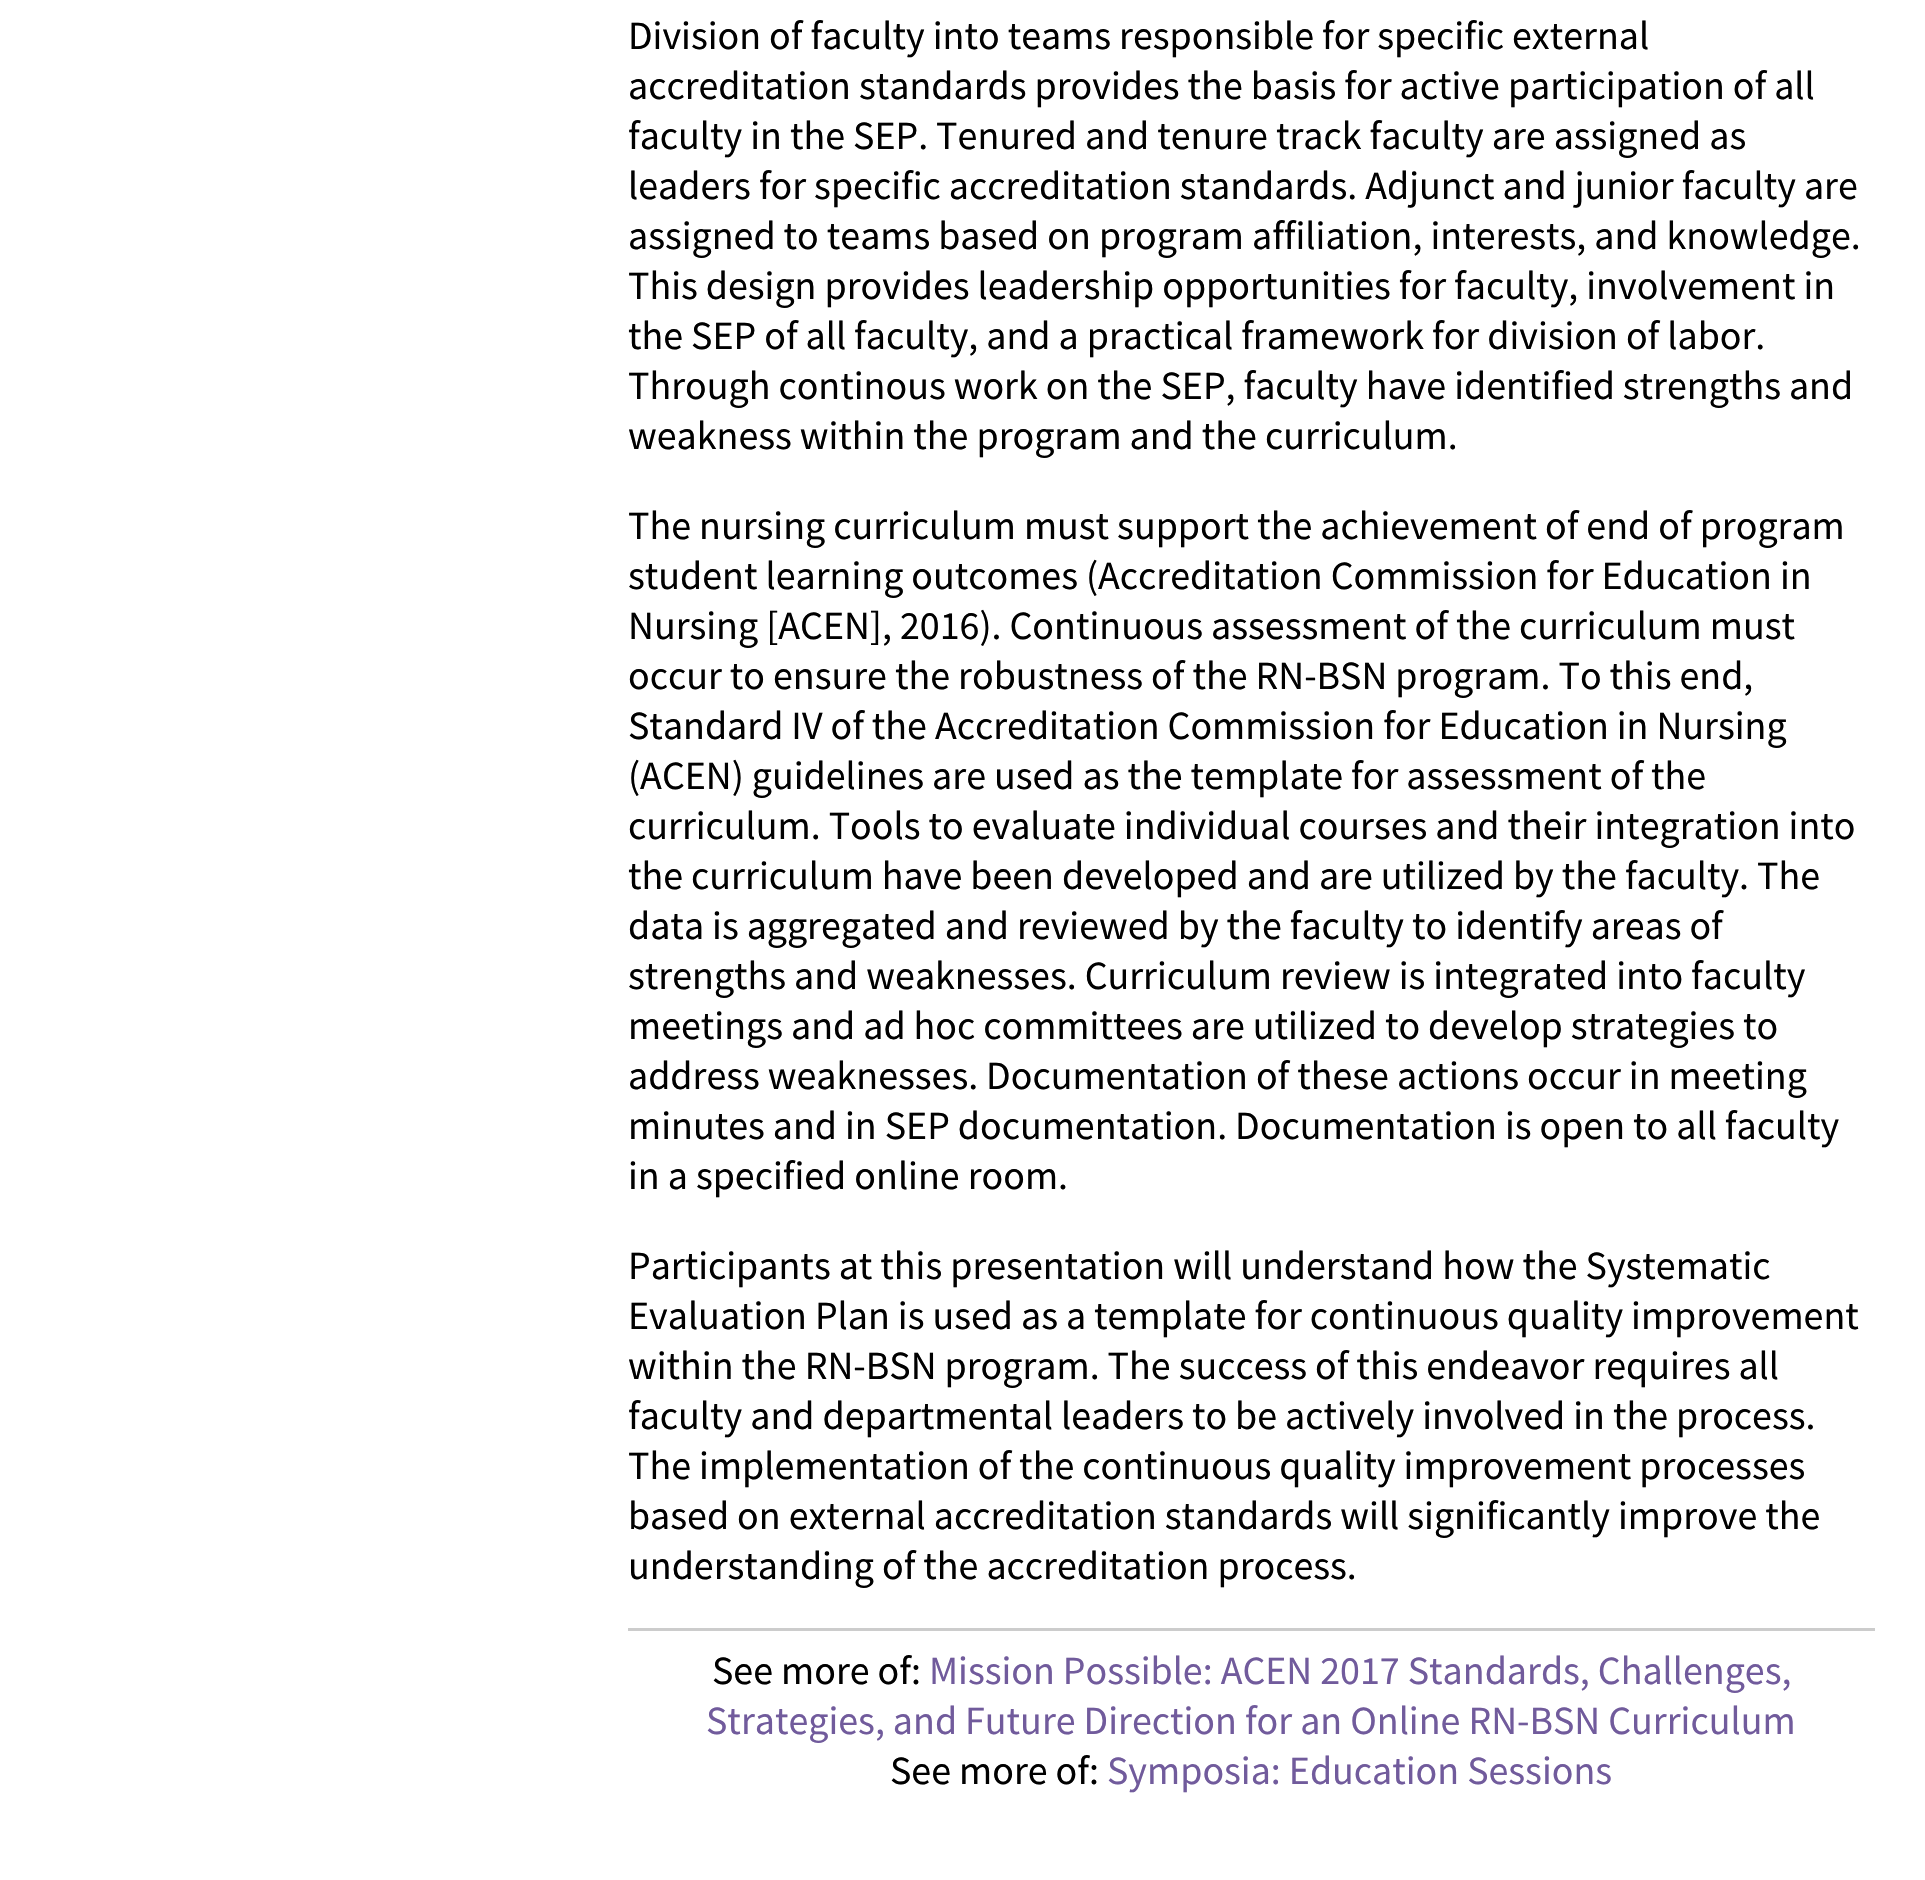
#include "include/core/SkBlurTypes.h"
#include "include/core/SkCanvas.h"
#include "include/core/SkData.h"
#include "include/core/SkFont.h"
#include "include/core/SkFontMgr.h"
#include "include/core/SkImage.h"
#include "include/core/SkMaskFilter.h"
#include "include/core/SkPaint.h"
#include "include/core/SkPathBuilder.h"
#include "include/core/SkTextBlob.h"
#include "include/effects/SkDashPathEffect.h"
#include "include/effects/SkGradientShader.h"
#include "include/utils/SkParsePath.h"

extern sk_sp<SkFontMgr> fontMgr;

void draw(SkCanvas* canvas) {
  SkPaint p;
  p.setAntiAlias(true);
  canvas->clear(SK_ColorWHITE);
  p.setColor(SkColorSetRGB(204, 204, 204));
  canvas->drawRect(SkRect::MakeLTRB(628, 1628, 1875, 1631), p);
  SkFont font1(fontMgr->matchFamilyStyle("Source Sans Pro", SkFontStyle::Normal()), 40);
  font1.setSubpixel(true);
  p.setColor(SK_ColorBLACK);
  canvas->drawString("Division of faculty into teams responsible for specific external", 628, 49, font1, p);
  canvas->drawString("accreditation standards provides the basis for active participation of all", 628, 99, font1, p);
  canvas->drawString("faculty in the SEP. Tenured and tenure track faculty are assigned as", 628, 149, font1, p);
  canvas->drawString("leaders for specific accreditation standards. Adjunct and junior faculty are", 628, 199, font1, p);
  canvas->drawString("assigned to teams based on program affiliation, interests, and knowledge.", 628, 249, font1, p);
  canvas->drawString("This design provides leadership opportunities for faculty, involvement in", 628, 299, font1, p);
  canvas->drawString("the SEP of all faculty, and a practical framework for division of labor.", 628, 349, font1, p);
  canvas->drawString("Through continous work on the SEP, faculty have identified strengths and", 628, 399, font1, p);
  canvas->drawString("weakness within the program and the curriculum.", 628, 449, font1, p);
  canvas->drawString("The nursing curriculum must support the achievement of end of program", 628, 539, font1, p);
  canvas->drawString("student learning outcomes (Accreditation Commission for Education in", 628, 589, font1, p);
  canvas->drawString("Nursing [ACEN], 2016). Continuous assessment of the curriculum must", 628, 639, font1, p);
  canvas->drawString("occur to ensure the robustness of the RN-BSN program. To this end,", 628, 689, font1, p);
  canvas->drawString("Standard IV of the Accreditation Commission for Education in Nursing", 628, 739, font1, p);
  canvas->drawString("(ACEN) guidelines are used as the template for assessment of the", 628, 789, font1, p);
  canvas->drawString("curriculum. Tools to evaluate individual courses and their integration into", 628, 839, font1, p);
  canvas->drawString("the curriculum have been developed and are utilized by the faculty. The", 628, 889, font1, p);
  canvas->drawString("data is aggregated and reviewed by the faculty to identify areas of", 628, 939, font1, p);
  canvas->drawString("strengths and weaknesses. Curriculum review is integrated into faculty", 628, 989, font1, p);
  canvas->drawString("meetings and ad hoc committees are utilized to develop strategies to", 628, 1039, font1, p);
  canvas->drawString("address weaknesses. Documentation of these actions occur in meeting", 628, 1089, font1, p);
  canvas->drawString("minutes and in SEP documentation. Documentation is open to all faculty", 628, 1139, font1, p);
  canvas->drawString("in a specified online room.", 628, 1189, font1, p);
  canvas->drawString("Participants at this presentation will understand how the Systematic", 628, 1279, font1, p);
  canvas->drawString("Evaluation Plan is used as a template for continuous quality improvement", 628, 1329, font1, p);
  canvas->drawString("within the RN-BSN program. The success of this endeavor requires all", 628, 1379, font1, p);
  canvas->drawString("faculty and departmental leaders to be actively involved in the process.", 628, 1429, font1, p);
  canvas->drawString("The implementation of the continuous quality improvement processes", 628, 1479, font1, p);
  canvas->drawString("based on external accreditation standards will significantly improve the", 628, 1529, font1, p);
  canvas->drawString("understanding of the accreditation process.", 628, 1579, font1, p);
  canvas->drawString("See more of:", 712, 1684, font1, p);
  p.setColor(SkColorSetRGB(113, 91, 156));
  canvas->drawString("Mission Possible: ACEN 2017 Standards, Challenges,", 929, 1684, font1, p);
  canvas->drawString("Strategies, and Future Direction for an Online RN-BSN Curriculum", 706, 1734, font1, p);
  p.setColor(SK_ColorBLACK);
  canvas->drawString("See more of:", 890, 1784, font1, p);
  p.setColor(SkColorSetRGB(113, 91, 156));
  canvas->drawString("Symposia: Education Sessions", 1107, 1784, font1, p);
}
